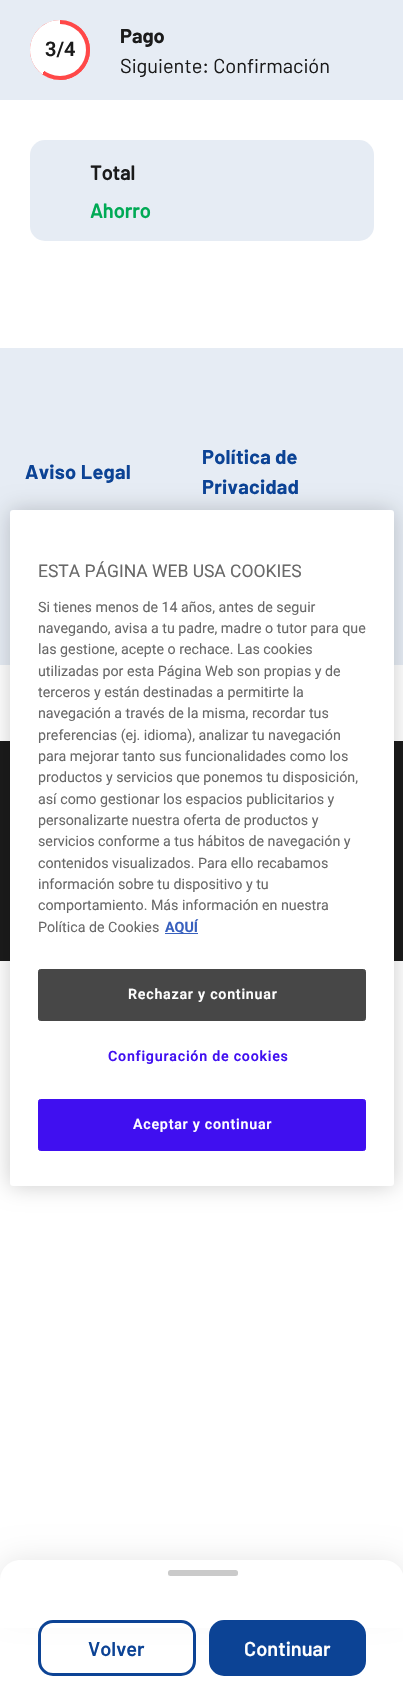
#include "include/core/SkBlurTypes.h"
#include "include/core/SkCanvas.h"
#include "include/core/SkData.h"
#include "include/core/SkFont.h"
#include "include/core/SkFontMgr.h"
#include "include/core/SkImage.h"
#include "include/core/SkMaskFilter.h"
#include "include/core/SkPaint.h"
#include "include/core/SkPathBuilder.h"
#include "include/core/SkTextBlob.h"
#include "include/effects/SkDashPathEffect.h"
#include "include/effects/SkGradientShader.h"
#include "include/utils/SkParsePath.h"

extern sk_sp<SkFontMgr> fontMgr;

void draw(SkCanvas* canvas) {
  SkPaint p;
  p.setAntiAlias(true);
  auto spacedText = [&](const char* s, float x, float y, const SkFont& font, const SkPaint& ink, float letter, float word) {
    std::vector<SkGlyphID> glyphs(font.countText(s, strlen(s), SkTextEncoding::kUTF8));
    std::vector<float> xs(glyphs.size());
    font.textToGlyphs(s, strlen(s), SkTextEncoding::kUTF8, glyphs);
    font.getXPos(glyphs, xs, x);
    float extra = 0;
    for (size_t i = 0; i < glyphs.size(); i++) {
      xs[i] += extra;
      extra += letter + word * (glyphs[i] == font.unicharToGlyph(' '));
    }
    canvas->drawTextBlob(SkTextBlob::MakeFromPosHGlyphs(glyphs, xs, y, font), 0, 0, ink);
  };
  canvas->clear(SK_ColorWHITE);
  p.setColor(SkColorSetRGB(230, 236, 244));
  canvas->drawRect(SkRect::MakeLTRB(0, 0, 403, 100), p);
  p.setColor(SkColorSetRGB(255, 72, 72));
  canvas->drawCircle(60, 50, 30, p);
  p.setColor(SK_ColorWHITE);
  canvas->drawPath(SkPathBuilder().moveTo(60, 20).lineTo(60, 80).cubicTo(43.5f, 80, 30, 66.5f, 30, 50).cubicTo(30, 33.5f, 43.5f, 20, 60, 20).close().detach(), p);
  {
    const SkColor colors[] = {SkColorSetRGB(255, 72, 72), SkColorSetARGB(0, 255, 72, 72)};
    const float stops[] = {0.5f, 0.5f};
    const SkPoint ends[] = {{94, 75}, {26, 25}};
    p.setShader(SkGradientShader::MakeLinear(ends, colors, stops, 2, SkTileMode::kClamp));
    p.setAlpha(255);
  }
  canvas->drawCircle(60, 50, 30, p);
  p.setShader(nullptr);
  p.setColor(SK_ColorWHITE);
  canvas->drawCircle(60, 50, 26, p);
  p.setColor(SkColorSetRGB(230, 236, 244));
  canvas->drawRoundRect(SkRect::MakeLTRB(30, 140, 374, 241), 15, 15, p);
  canvas->drawRect(SkRect::MakeLTRB(0, 348, 403, 665), p);
  p.setColor(SkColorSetRGB(27, 27, 27));
  canvas->drawRect(SkRect::MakeLTRB(0, 741, 403, 961), p);
  p.setColor(SkColorSetARGB(26, 0, 0, 0));
  p.setMaskFilter(SkMaskFilter::MakeBlur(kNormal_SkBlurStyle, 15));
  canvas->drawRoundRect(SkRect::MakeLTRB(0, 1560, 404, 1609), 20, 20, p);
  p.setMaskFilter(nullptr);
  p.setColor(SK_ColorWHITE);
  canvas->drawPath(SkPathBuilder().moveTo(20, 1560).lineTo(384, 1560).cubicTo(395, 1560, 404, 1569, 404, 1580).lineTo(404, 1609).lineTo(0, 1609).lineTo(0, 1580).cubicTo(0, 1569, 9, 1560, 20, 1560).close().detach(), p);
  p.setColor(SkColorSetRGB(202, 202, 202));
  canvas->drawRoundRect(SkRect::MakeLTRB(168, 1570, 238, 1576), 2.5f, 2.5f, p);
  p.setColor(SK_ColorWHITE);
  canvas->drawRect(SkRect::MakeLTRB(0, 1609, 403, 1628), p);
  p.setStyle(SkPaint::kStroke_Style);
  p.setStrokeWidth(3);
  p.setColor(SkColorSetRGB(12, 67, 149));
  canvas->drawRoundRect(SkRect::MakeLTRB(39.5f, 1621.5f, 194.5f, 1674.5f), 13.5f, 13.5f, p);
  p.setStyle(SkPaint::kFill_Style);
  canvas->drawRoundRect(SkRect::MakeLTRB(210.5f, 1621.5f, 364.5f, 1674.5f), 13.5f, 13.5f, p);
  p.setStyle(SkPaint::kStroke_Style);
  canvas->drawRoundRect(SkRect::MakeLTRB(210.5f, 1621.5f, 364.5f, 1674.5f), 13.5f, 13.5f, p);
  p.setStyle(SkPaint::kFill_Style);
  p.setColor(SkColorSetARGB(51, 0, 0, 0));
  p.setMaskFilter(SkMaskFilter::MakeBlur(kNormal_SkBlurStyle, 11));
  canvas->drawRoundRect(SkRect::MakeLTRB(10, 510, 394, 1186), 3, 3, p);
  p.setMaskFilter(nullptr);
  p.setColor(SK_ColorWHITE);
  canvas->drawRoundRect(SkRect::MakeLTRB(10, 510, 394, 1186), 3, 3, p);
  p.setColor(SkColorSetRGB(56, 96, 190));
  canvas->drawRect(SkRect::MakeLTRB(165, 933, 198, 934), p);
  p.setColor(SkColorSetRGB(71, 71, 71));
  canvas->drawRoundRect(SkRect::MakeLTRB(38.5f, 969.5f, 365.5f, 1020.5f), 2, 2, p);
  p.setStyle(SkPaint::kStroke_Style);
  p.setStrokeWidth(1);
  canvas->drawRoundRect(SkRect::MakeLTRB(38.5f, 969.5f, 365.5f, 1020.5f), 2, 2, p);
  p.setStyle(SkPaint::kFill_Style);
  p.setColor(SkColorSetRGB(64, 15, 240));
  canvas->drawRoundRect(SkRect::MakeLTRB(38.5f, 1099.5f, 365.5f, 1150.5f), 2, 2, p);
  p.setStyle(SkPaint::kStroke_Style);
  canvas->drawRoundRect(SkRect::MakeLTRB(38.5f, 1099.5f, 365.5f, 1150.5f), 2, 2, p);
  SkFont font1(fontMgr->matchFamilyStyle("Roboto", SkFontStyle(600, SkFontStyle::kNormal_Width, SkFontStyle::kUpright_Slant)), 20);
  font1.setSubpixel(true);
  p.setStyle(SkPaint::kFill_Style);
  p.setColor(SkColorSetRGB(27, 27, 27));
  canvas->drawString("3/4", 45, 56, font1, p);
  SkFont font2(fontMgr->matchFamilyStyle("Barlow", SkFontStyle::Bold()), 20);
  font2.setSubpixel(true);
  canvas->drawString("Pago", 120, 43, font2, p);
  SkFont font3(fontMgr->matchFamilyStyle("Barlow", SkFontStyle::Normal()), 20);
  font3.setSubpixel(true);
  canvas->drawString("Siguiente: Confirmación", 120, 73, font3, p);
  SkFont font4(fontMgr->matchFamilyStyle("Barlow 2", SkFontStyle::Bold()), 20);
  font4.setSubpixel(true);
  canvas->drawString("Total", 90, 180, font4, p);
  p.setColor(SkColorSetRGB(0, 170, 85));
  canvas->drawString("Ahorro", 90, 218, font4, p);
  p.setColor(SkColorSetRGB(12, 67, 149));
  spacedText("Aviso Legal", 25, 479, font2, p, 0.25f, 0);
  spacedText("Política de", 202, 464, font2, p, 0.25f, 0);
  spacedText("Privacidad", 202, 494, font2, p, 0.25f, 0);
  SkFont font5(fontMgr->matchFamilyStyle("Barlow", SkFontStyle(600, SkFontStyle::kNormal_Width, SkFontStyle::kUpright_Slant)), 20);
  font5.setSubpixel(true);
  canvas->drawString("Volver", 88, 1656, font5, p);
  p.setColor(SK_ColorWHITE);
  canvas->drawString("Continuar", 244, 1656, font5, p);
  SkFont font6(fontMgr->matchFamilyStyle("Roboto", SkFontStyle::Normal()), 17.5f);
  font6.setSubpixel(true);
  p.setColor(SkColorSetRGB(105, 105, 105));
  canvas->drawString("ESTA PÁGINA WEB USA COOKIES", 38, 577, font6, p);
  SkFont font7(fontMgr->matchFamilyStyle("Roboto", SkFontStyle::Normal()), 14.25f);
  font7.setSubpixel(true);
  canvas->drawString("Si tienes menos de 14 años, antes de seguir", 38, 612, font7, p);
  canvas->drawString("navegando, avisa a tu padre, madre o tutor para que", 38, 633, font7, p);
  canvas->drawString("las gestione, acepte o rechace. Las cookies", 38, 654, font7, p);
  canvas->drawString("utilizadas por esta Página Web son propias y de", 38, 676, font7, p);
  canvas->drawString("terceros y están destinadas a permitirte la", 38, 697, font7, p);
  canvas->drawString("navegación a través de la misma, recordar tus", 38, 718, font7, p);
  canvas->drawString("preferencias (ej. idioma), analizar tu navegación", 38, 740, font7, p);
  canvas->drawString("para mejorar tanto sus funcionalidades como los", 38, 761, font7, p);
  canvas->drawString("productos y servicios que ponemos tu disposición,", 38, 782, font7, p);
  canvas->drawString("así como gestionar los espacios publicitarios y", 38, 804, font7, p);
  canvas->drawString("personalizarte nuestra oferta de productos y", 38, 825, font7, p);
  canvas->drawString("servicios conforme a tus hábitos de navegación y", 38, 846, font7, p);
  canvas->drawString("contenidos visualizados. Para ello recabamos", 38, 868, font7, p);
  canvas->drawString("información sobre tu dispositivo y tu", 38, 889, font7, p);
  canvas->drawString("comportamiento. Más información en nuestra", 38, 910, font7, p);
  canvas->drawString("Política de Cookies", 38, 932, font7, p);
  SkFont font8(fontMgr->matchFamilyStyle("Roboto", SkFontStyle::Bold()), 14.25f);
  font8.setSubpixel(true);
  p.setColor(SkColorSetRGB(56, 96, 190));
  canvas->drawString("AQUÍ", 165, 932, font8, p);
  SkFont font9(fontMgr->matchFamilyStyle("Roboto", SkFontStyle(600, SkFontStyle::kNormal_Width, SkFontStyle::kUpright_Slant)), 14.25f);
  font9.setSubpixel(true);
  p.setColor(SK_ColorWHITE);
  spacedText("Rechazar y continuar", 128, 999, font9, p, 0.75f, 0);
  spacedText("Aceptar y continuar", 133, 1129, font9, p, 0.75f, 0);
  p.setColor(SkColorSetRGB(64, 15, 240));
  spacedText("Configuración de cookies", 108, 1061, font9, p, 0.75f, 0);
}
